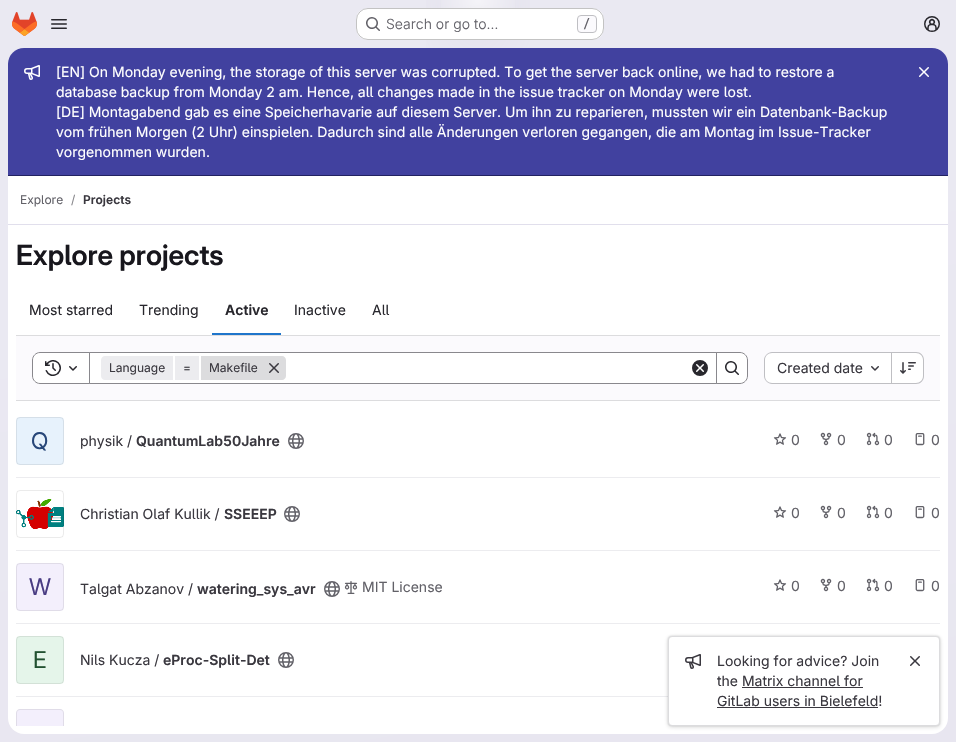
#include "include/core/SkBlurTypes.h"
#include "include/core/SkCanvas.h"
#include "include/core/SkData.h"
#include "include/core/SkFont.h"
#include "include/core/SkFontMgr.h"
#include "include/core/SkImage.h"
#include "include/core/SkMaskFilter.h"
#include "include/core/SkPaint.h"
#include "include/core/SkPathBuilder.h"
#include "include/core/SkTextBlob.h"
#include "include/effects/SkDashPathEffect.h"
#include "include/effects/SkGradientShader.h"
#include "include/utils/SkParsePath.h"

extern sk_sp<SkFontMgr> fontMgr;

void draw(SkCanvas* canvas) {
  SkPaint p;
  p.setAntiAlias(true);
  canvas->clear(SK_ColorWHITE);
  {
    const SkColor colors[] = {SkColorSetRGB(232, 230, 240), SkColorSetRGB(234, 233, 242)};
    const float stops[] = {0, 0.7f};
    const SkPoint ends[] = {{556, 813}, {400, -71}};
    p.setShader(SkGradientShader::MakeLinear(ends, colors, stops, 2, SkTileMode::kClamp));
    p.setAlpha(255);
  }
  canvas->drawRect(SkRect::MakeLTRB(0, 0, 956, 742), p);
  {
    const SkColor colors[] = {SkColorSetRGB(228, 226, 237), SkColorSetARGB(0, 228, 226, 237)};
    const float stops[] = {0, 0.15f};
    SkMatrix m = SkMatrix::Translate(478, 0).preScale(478, 742);
    p.setShader(SkGradientShader::MakeRadial({0, 0}, 1, colors, stops, 2, SkTileMode::kClamp, 0, &m));
    p.setAlpha(255);
  }
  canvas->drawRect(SkRect::MakeLTRB(426, 0, 530, 48), p);
  {
    const SkColor colors[] = {SkColorSetRGB(228, 226, 236), SkColorSetARGB(0, 228, 226, 236)};
    const float stops[] = {0, 0.1f};
    SkMatrix m = SkMatrix::Translate(478, 0).preScale(478, 742);
    p.setShader(SkGradientShader::MakeRadial({0, 0}, 1, colors, stops, 2, SkTileMode::kClamp, 0, &m));
    p.setAlpha(255);
  }
  canvas->drawRect(SkRect::MakeLTRB(468, 5, 488, 23), p);
  {
    const SkColor colors[] = {SkColorSetARGB(153, 255, 255, 255), SkColorSetARGB(0, 255, 255, 255)};
    const float stops[] = {0, 0.05f};
    p.setShader(SkGradientShader::MakeRadial({478, 0}, 883, colors, stops, 2, SkTileMode::kClamp));
    p.setAlpha(255);
  }
  canvas->drawRect(SkRect::MakeLTRB(441, 0, 515, 37), p);
  canvas->drawImageRect(SkImages::DeferredFromEncodedData(SkData::MakeFromFileName("images/1.png")), SkRect::MakeLTRB(12, 12, 37, 36), SkSamplingOptions());
  canvas->drawImageRect(SkImages::DeferredFromEncodedData(SkData::MakeFromFileName("images/2.png")), SkRect::MakeLTRB(51, 19, 67, 29), SkSamplingOptions());
  p.setShader(nullptr);
  p.setColor(SK_ColorWHITE);
  canvas->drawRoundRect(SkRect::MakeLTRB(356, 8, 604, 40), 12, 12, p);
  p.setStyle(SkPaint::kStroke_Style);
  p.setStrokeWidth(1);
  p.setColor(SkColorSetARGB(61, 5, 5, 6));
  canvas->drawRoundRect(SkRect::MakeLTRB(356.5f, 8.5f, 603.5f, 39.5f), 11.5f, 11.5f, p);
  canvas->drawImageRect(SkImages::DeferredFromEncodedData(SkData::MakeFromFileName("images/3.png")), SkRect::MakeLTRB(366, 17, 380, 31), SkSamplingOptions());
  p.setStyle(SkPaint::kFill_Style);
  p.setColor(SkColorSetRGB(251, 250, 253));
  canvas->drawRoundRect(SkRect::MakeLTRB(577.5f, 15.5f, 596.5f, 32.5f), 3.5f, 3.5f, p);
  p.setStyle(SkPaint::kStroke_Style);
  p.setColor(SkColorSetRGB(191, 191, 195));
  canvas->drawRoundRect(SkRect::MakeLTRB(577.5f, 15.5f, 596.5f, 32.5f), 3.5f, 3.5f, p);
  canvas->drawImageRect(SkImages::DeferredFromEncodedData(SkData::MakeFromFileName("images/4.png")), SkRect::MakeLTRB(924, 16, 940, 32), SkSamplingOptions());
  p.setStyle(SkPaint::kFill_Style);
  p.setColor(SK_ColorWHITE);
  canvas->drawRoundRect(SkRect::MakeLTRB(8, 48, 948, 734), 16, 16, p);
  p.setColor(SkColorSetRGB(65, 65, 159));
  canvas->drawPath(SkPathBuilder().moveTo(24, 48).lineTo(932, 48).cubicTo(941, 48, 948, 55, 948, 64).lineTo(948, 176).lineTo(8, 176).lineTo(8, 64).cubicTo(8, 55, 15, 48, 24, 48).close().detach(), p);
  p.setColor(SkColorSetRGB(34, 34, 97));
  canvas->drawRect(SkRect::MakeLTRB(8, 175, 948, 176), p);
  canvas->drawImageRect(SkImages::DeferredFromEncodedData(SkData::MakeFromFileName("images/5.png")), SkRect::MakeLTRB(24, 65, 40, 80), SkSamplingOptions());
  canvas->drawImageRect(SkImages::DeferredFromEncodedData(SkData::MakeFromFileName("images/6.png")), SkRect::MakeLTRB(919, 67, 929, 77), SkSamplingOptions());
  p.setColor(SkColorSetRGB(236, 236, 239));
  canvas->drawRect(SkRect::MakeLTRB(16, 696, 668, 697), p);
  p.setColor(SkColorSetARGB(41, 5, 5, 6));
  p.setMaskFilter(SkMaskFilter::MakeBlur(kNormal_SkBlurStyle, 2));
  canvas->drawRoundRect(SkRect::MakeLTRB(668, 637, 940, 727), 4, 4, p);
  p.setMaskFilter(nullptr);
  p.setMaskFilter(SkMaskFilter::MakeBlur(kNormal_SkBlurStyle, 1));
  canvas->drawRoundRect(SkRect::MakeLTRB(668, 636, 940, 726), 4, 4, p);
  p.setMaskFilter(nullptr);
  p.setColor(SK_ColorWHITE);
  canvas->drawRoundRect(SkRect::MakeLTRB(668.5f, 636.5f, 939.5f, 725.5f), 3.5f, 3.5f, p);
  p.setStyle(SkPaint::kStroke_Style);
  p.setColor(SkColorSetRGB(220, 220, 222));
  canvas->drawRoundRect(SkRect::MakeLTRB(668.5f, 636.5f, 939.5f, 725.5f), 3.5f, 3.5f, p);
  canvas->drawImageRect(SkImages::DeferredFromEncodedData(SkData::MakeFromFileName("images/7.png")), SkRect::MakeLTRB(685, 654, 701, 669), SkSamplingOptions());
  p.setStyle(SkPaint::kFill_Style);
  p.setColor(SkColorSetRGB(58, 56, 63));
  canvas->drawRect(SkRect::MakeLTRB(742, 687, 863, 688), p);
  canvas->drawRect(SkRect::MakeLTRB(717, 707, 878, 708), p);
  canvas->drawImageRect(SkImages::DeferredFromEncodedData(SkData::MakeFromFileName("images/8.png")), SkRect::MakeLTRB(910, 656, 920, 666), SkSamplingOptions());
  p.setColor(SkColorSetRGB(225, 223, 236));
  canvas->drawRect(SkRect::MakeLTRB(8, 224, 948, 225), p);
  p.setColor(SkColorSetRGB(31, 117, 203));
  canvas->drawRect(SkRect::MakeLTRB(212, 333, 281, 335), p);
  p.setColor(SkColorSetRGB(251, 250, 253));
  canvas->drawRect(SkRect::MakeLTRB(16, 336, 940, 400), p);
  p.setColor(SkColorSetRGB(220, 220, 222));
  canvas->drawRect(SkRect::MakeLTRB(16, 335, 940, 336), p);
  canvas->drawRect(SkRect::MakeLTRB(16, 400, 940, 401), p);
  p.setColor(SK_ColorWHITE);
  canvas->drawRect(SkRect::MakeLTRB(89.5f, 352.5f, 716.5f, 383.5f), p);
  p.setStyle(SkPaint::kStroke_Style);
  p.setColor(SkColorSetRGB(137, 136, 141));
  canvas->drawRect(SkRect::MakeLTRB(89.5f, 352.5f, 716.5f, 383.5f), p);
  p.setStyle(SkPaint::kFill_Style);
  p.setColor(SK_ColorWHITE);
  canvas->drawPath(SkPathBuilder().moveTo(40, 352.5f).lineTo(89.5f, 352.5f).lineTo(89.5f, 383.5f).lineTo(40, 383.5f).cubicTo(36, 383.5f, 32.5f, 380, 32.5f, 376).lineTo(32.5f, 360).cubicTo(32.5f, 356, 36, 352.5f, 40, 352.5f).close().detach(), p);
  p.setStyle(SkPaint::kStroke_Style);
  p.setColor(SkColorSetRGB(137, 136, 141));
  canvas->drawPath(SkPathBuilder().moveTo(40, 352.5f).lineTo(89.5f, 352.5f).lineTo(89.5f, 383.5f).lineTo(40, 383.5f).cubicTo(36, 383.5f, 32.5f, 380, 32.5f, 376).lineTo(32.5f, 360).cubicTo(32.5f, 356, 36, 352.5f, 40, 352.5f).close().detach(), p);
  canvas->drawImageRect(SkImages::DeferredFromEncodedData(SkData::MakeFromFileName("images/9.png")), SkRect::MakeLTRB(45, 360, 61, 376), SkSamplingOptions());
  canvas->drawImageRect(SkImages::DeferredFromEncodedData(SkData::MakeFromFileName("images/10.png")), SkRect::MakeLTRB(69, 366, 77, 371), SkSamplingOptions());
  p.setStyle(SkPaint::kFill_Style);
  p.setColor(SkColorSetRGB(236, 236, 239));
  canvas->drawPath(SkPathBuilder().moveTo(105, 356).lineTo(173, 356).lineTo(173, 380).lineTo(105, 380).cubicTo(103, 380, 101, 378, 101, 376).lineTo(101, 360).cubicTo(101, 358, 103, 356, 105, 356).close().detach(), p);
  canvas->drawRect(SkRect::MakeLTRB(175, 356, 199, 380), p);
  p.setColor(SkColorSetRGB(220, 220, 222));
  canvas->drawPath(SkPathBuilder().moveTo(201, 356).lineTo(282, 356).cubicTo(284, 356, 286, 358, 286, 360).lineTo(286, 376).cubicTo(286, 378, 284, 380, 282, 380).lineTo(201, 380).close().detach(), p);
  canvas->drawImageRect(SkImages::DeferredFromEncodedData(SkData::MakeFromFileName("images/11.png")), SkRect::MakeLTRB(269, 363, 279, 373), SkSamplingOptions());
  canvas->drawImageRect(SkImages::DeferredFromEncodedData(SkData::MakeFromFileName("images/12.png")), SkRect::MakeLTRB(692, 360, 708, 376), SkSamplingOptions());
  p.setColor(SK_ColorWHITE);
  canvas->drawPath(SkPathBuilder().moveTo(716.5f, 352.5f).lineTo(740, 352.5f).cubicTo(744, 352.5f, 747.5f, 356, 747.5f, 360).lineTo(747.5f, 376).cubicTo(747.5f, 380, 744, 383.5f, 740, 383.5f).lineTo(716.5f, 383.5f).close().detach(), p);
  p.setStyle(SkPaint::kStroke_Style);
  p.setColor(SkColorSetRGB(137, 136, 141));
  canvas->drawPath(SkPathBuilder().moveTo(716.5f, 352.5f).lineTo(740, 352.5f).cubicTo(744, 352.5f, 747.5f, 356, 747.5f, 360).lineTo(747.5f, 376).cubicTo(747.5f, 380, 744, 383.5f, 740, 383.5f).lineTo(716.5f, 383.5f).close().detach(), p);
  canvas->drawImageRect(SkImages::DeferredFromEncodedData(SkData::MakeFromFileName("images/13.png")), SkRect::MakeLTRB(725, 361, 739, 375), SkSamplingOptions());
  p.setStyle(SkPaint::kFill_Style);
  p.setColor(SK_ColorWHITE);
  canvas->drawPath(SkPathBuilder().moveTo(772, 353).lineTo(891, 353).lineTo(891, 383).lineTo(772, 383).cubicTo(768, 383, 765, 380, 765, 376).lineTo(765, 360).cubicTo(765, 356, 768, 353, 772, 353).close().detach(), p);
  p.setColor(SkColorSetRGB(191, 191, 195));
  canvas->drawPath(SkPathBuilder(SkPathFillType::kEvenOdd).moveTo(772, 352).lineTo(891, 352).lineTo(891, 384).lineTo(772, 384).cubicTo(768, 384, 764, 380, 764, 376).lineTo(764, 360).cubicTo(764, 356, 768, 352, 772, 352).close().moveTo(772, 353).lineTo(891, 353).lineTo(891, 383).lineTo(772, 383).cubicTo(768, 383, 765, 380, 765, 376).lineTo(765, 360).cubicTo(765, 356, 768, 353, 772, 353).close().detach(), p);
  canvas->drawImageRect(SkImages::DeferredFromEncodedData(SkData::MakeFromFileName("images/14.png")), SkRect::MakeLTRB(871, 366, 879, 371), SkSamplingOptions());
  p.setColor(SK_ColorWHITE);
  canvas->drawPath(SkPathBuilder().moveTo(892, 353).lineTo(916, 353).cubicTo(920, 353, 923, 356, 923, 360).lineTo(923, 376).cubicTo(923, 380, 920, 383, 916, 383).lineTo(892, 383).close().detach(), p);
  p.setColor(SkColorSetRGB(191, 191, 195));
  canvas->drawPath(SkPathBuilder(SkPathFillType::kEvenOdd).moveTo(892, 352).lineTo(916, 352).cubicTo(920.5f, 352, 924, 355.5f, 924, 360).lineTo(924, 376).cubicTo(924, 380.5f, 920.5f, 384, 916, 384).lineTo(892, 384).close().moveTo(892, 353).lineTo(916, 353).cubicTo(920, 353, 923, 356, 923, 360).lineTo(923, 376).cubicTo(923, 380, 920, 383, 916, 383).lineTo(892, 383).close().detach(), p);
  canvas->drawRect(SkRect::MakeLTRB(891, 352, 892, 384), p);
  canvas->drawImageRect(SkImages::DeferredFromEncodedData(SkData::MakeFromFileName("images/15.png")), SkRect::MakeLTRB(900, 362, 916, 374), SkSamplingOptions());
  p.setColor(SkColorSetRGB(236, 236, 239));
  canvas->drawRect(SkRect::MakeLTRB(16, 477, 940, 478), p);
  p.setColor(SkColorSetRGB(231, 242, 252));
  canvas->drawRoundRect(SkRect::MakeLTRB(16, 417, 64, 465), 4, 4, p);
  p.setStyle(SkPaint::kStroke_Style);
  p.setColor(SkColorSetARGB(20, 5, 5, 6));
  canvas->drawRoundRect(SkRect::MakeLTRB(16.5f, 417.5f, 63.5f, 464.5f), 3.5f, 3.5f, p);
  canvas->drawImageRect(SkImages::DeferredFromEncodedData(SkData::MakeFromFileName("images/16.png")), SkRect::MakeLTRB(288, 433, 304, 449), SkSamplingOptions());
  canvas->drawImageRect(SkImages::DeferredFromEncodedData(SkData::MakeFromFileName("images/17.png")), SkRect::MakeLTRB(773, 433, 787, 445), SkSamplingOptions());
  canvas->drawImageRect(SkImages::DeferredFromEncodedData(SkData::MakeFromFileName("images/18.png")), SkRect::MakeLTRB(820, 432, 832, 446), SkSamplingOptions());
  canvas->drawImageRect(SkImages::DeferredFromEncodedData(SkData::MakeFromFileName("images/19.png")), SkRect::MakeLTRB(866, 432, 880, 446), SkSamplingOptions());
  canvas->drawImageRect(SkImages::DeferredFromEncodedData(SkData::MakeFromFileName("images/20.png")), SkRect::MakeLTRB(915, 433, 925, 446), SkSamplingOptions());
  p.setStyle(SkPaint::kFill_Style);
  p.setColor(SkColorSetRGB(236, 236, 239));
  canvas->drawRect(SkRect::MakeLTRB(16, 550, 940, 551), p);
  canvas->drawImageRect(SkImages::DeferredFromEncodedData(SkData::MakeFromFileName("images/21.png")), SkRect::MakeLTRB(16, 499, 64, 529), SkSamplingOptions());
  p.setStyle(SkPaint::kStroke_Style);
  p.setColor(SkColorSetARGB(20, 5, 5, 6));
  canvas->drawRoundRect(SkRect::MakeLTRB(16.5f, 490.5f, 63.5f, 537.5f), 3.5f, 3.5f, p);
  canvas->drawImageRect(SkImages::DeferredFromEncodedData(SkData::MakeFromFileName("images/22.png")), SkRect::MakeLTRB(284, 506, 300, 522), SkSamplingOptions());
  canvas->drawImageRect(SkImages::DeferredFromEncodedData(SkData::MakeFromFileName("images/23.png")), SkRect::MakeLTRB(773, 506, 787, 518), SkSamplingOptions());
  canvas->drawImageRect(SkImages::DeferredFromEncodedData(SkData::MakeFromFileName("images/24.png")), SkRect::MakeLTRB(820, 505, 832, 519), SkSamplingOptions());
  canvas->drawImageRect(SkImages::DeferredFromEncodedData(SkData::MakeFromFileName("images/25.png")), SkRect::MakeLTRB(866, 505, 880, 519), SkSamplingOptions());
  canvas->drawImageRect(SkImages::DeferredFromEncodedData(SkData::MakeFromFileName("images/26.png")), SkRect::MakeLTRB(915, 506, 925, 519), SkSamplingOptions());
  p.setStyle(SkPaint::kFill_Style);
  p.setColor(SkColorSetRGB(236, 236, 239));
  canvas->drawRect(SkRect::MakeLTRB(16, 623, 940, 624), p);
  p.setColor(SkColorSetRGB(243, 239, 252));
  canvas->drawRoundRect(SkRect::MakeLTRB(16, 563, 64, 611), 4, 4, p);
  p.setStyle(SkPaint::kStroke_Style);
  p.setColor(SkColorSetARGB(20, 5, 5, 6));
  canvas->drawRoundRect(SkRect::MakeLTRB(16.5f, 563.5f, 63.5f, 610.5f), 3.5f, 3.5f, p);
  canvas->drawImageRect(SkImages::DeferredFromEncodedData(SkData::MakeFromFileName("images/16.png")), SkRect::MakeLTRB(324, 581, 340, 597), SkSamplingOptions());
  canvas->drawImageRect(SkImages::DeferredFromEncodedData(SkData::MakeFromFileName("images/27.png")), SkRect::MakeLTRB(344, 581, 358, 594), SkSamplingOptions());
  canvas->drawImageRect(SkImages::DeferredFromEncodedData(SkData::MakeFromFileName("images/28.png")), SkRect::MakeLTRB(773, 579, 787, 591), SkSamplingOptions());
  canvas->drawImageRect(SkImages::DeferredFromEncodedData(SkData::MakeFromFileName("images/29.png")), SkRect::MakeLTRB(820, 578, 832, 592), SkSamplingOptions());
  canvas->drawImageRect(SkImages::DeferredFromEncodedData(SkData::MakeFromFileName("images/30.png")), SkRect::MakeLTRB(866, 578, 880, 592), SkSamplingOptions());
  canvas->drawImageRect(SkImages::DeferredFromEncodedData(SkData::MakeFromFileName("images/31.png")), SkRect::MakeLTRB(915, 579, 925, 592), SkSamplingOptions());
  p.setStyle(SkPaint::kFill_Style);
  p.setColor(SkColorSetRGB(229, 245, 234));
  canvas->drawRoundRect(SkRect::MakeLTRB(16, 636, 64, 684), 4, 4, p);
  p.setStyle(SkPaint::kStroke_Style);
  p.setColor(SkColorSetARGB(20, 5, 5, 6));
  canvas->drawRoundRect(SkRect::MakeLTRB(16.5f, 636.5f, 63.5f, 683.5f), 3.5f, 3.5f, p);
  canvas->drawImageRect(SkImages::DeferredFromEncodedData(SkData::MakeFromFileName("images/16.png")), SkRect::MakeLTRB(278, 652, 294, 668), SkSamplingOptions());
  p.setStyle(SkPaint::kFill_Style);
  p.setColor(SkColorSetRGB(243, 239, 252));
  canvas->drawPath(SkPathBuilder().moveTo(20, 709).lineTo(60, 709).cubicTo(62, 709, 64, 711, 64, 713).lineTo(64, 726).lineTo(16, 726).lineTo(16, 713).cubicTo(16, 711, 18, 709, 20, 709).close().detach(), p);
  canvas->save();
  canvas->clipRect(SkRect::MakeLTRB(8, 225, 948, 726));
  p.setColor(SkColorSetARGB(20, 5, 5, 6));
  canvas->drawPath(SkPathBuilder().moveTo(20, 709).cubicTo(18, 709, 16, 711, 16, 713).lineTo(16, 732).lineTo(17, 732).lineTo(17, 713).cubicTo(17, 711, 18, 710, 20, 710).lineTo(60, 710).cubicTo(62, 710, 63, 711, 63, 713).lineTo(63, 734).lineTo(64, 734).lineTo(64, 713).cubicTo(64, 711, 62, 709, 60, 709).close().detach(), p);
  canvas->restore();
  SkFont font1(fontMgr->matchFamilyStyle("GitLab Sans", SkFontStyle(300, SkFontStyle::kNormal_Width, SkFontStyle::kUpright_Slant)), 14);
  font1.setSubpixel(true);
  p.setColor(SkColorSetRGB(98, 97, 104));
  canvas->drawString("Search or go to…", 386, 29, font1, p);
  SkFont font2(fontMgr->matchFamilyStyle("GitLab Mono", SkFontStyle(500, SkFontStyle::kNormal_Width, SkFontStyle::kUpright_Slant)), 12);
  font2.setSubpixel(true);
  canvas->drawString("/", 583, 28, font2, p);
  SkFont font3(fontMgr->matchFamilyStyle("GitLab Sans", SkFontStyle::Normal()), 14);
  font3.setSubpixel(true);
  p.setColor(SK_ColorWHITE);
  canvas->drawString("[EN] On Monday evening, the storage of this server was corrupted. To get the server back online, we had to restore a", 56, 77, font3, p);
  canvas->drawString("database backup from Monday 2 am. Hence, all changes made in the issue tracker on Monday were lost.", 56, 97, font3, p);
  canvas->drawString("[DE] Montagabend gab es eine Speicherhavarie auf diesem Server. Um ihn zu reparieren, mussten wir ein Datenbank-Backup", 56, 117, font3, p);
  canvas->drawString("vom frühen Morgen (2 Uhr) einspielen. Dadurch sind alle Änderungen verloren gegangen, die am Montag im Issue-Tracker", 56, 137, font3, p);
  canvas->drawString("vorgenommen wurden.", 56, 157, font3, p);
  p.setColor(SkColorSetRGB(58, 56, 63));
  canvas->drawString("Looking for advice? Join", 717, 666, font3, p);
  canvas->drawString("the Matrix channel for", 717, 686, font3, p);
  canvas->drawString("GitLab users in Bielefeld!", 717, 706, font3, p);
  SkFont font4(fontMgr->matchFamilyStyle("GitLab Sans", SkFontStyle::Normal()), 12);
  font4.setSubpixel(true);
  p.setColor(SkColorSetRGB(98, 97, 104));
  canvas->drawString("Explore", 20, 204, font4, p);
  p.setColor(SkColorSetRGB(137, 136, 141));
  canvas->drawString("/", 71, 204, font4, p);
  SkFont font5(fontMgr->matchFamilyStyle("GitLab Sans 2", SkFontStyle(600, SkFontStyle::kNormal_Width, SkFontStyle::kUpright_Slant)), 12);
  font5.setSubpixel(true);
  p.setColor(SkColorSetRGB(58, 56, 63));
  canvas->drawString("Projects", 83, 204, font5, p);
  SkFont font6(fontMgr->matchFamilyStyle("GitLab Sans", SkFontStyle(600, SkFontStyle::kNormal_Width, SkFontStyle::kUpright_Slant)), 28);
  font6.setSubpixel(true);
  p.setColor(SkColorSetRGB(24, 23, 29));
  canvas->drawString("Explore projects", 16, 265, font6, p);
  p.setColor(SkColorSetRGB(40, 39, 45));
  canvas->drawString("Most starred", 29, 315, font3, p);
  canvas->drawString("Trending", 139, 315, font3, p);
  SkFont font7(fontMgr->matchFamilyStyle("GitLab Sans 2", SkFontStyle(600, SkFontStyle::kNormal_Width, SkFontStyle::kUpright_Slant)), 14);
  font7.setSubpixel(true);
  canvas->drawString("Active", 225, 315, font7, p);
  canvas->drawString("Inactive", 294, 315, font3, p);
  canvas->drawString("All", 372, 315, font3, p);
  p.setColor(SkColorSetRGB(58, 56, 63));
  canvas->drawString("Language", 109, 372, font4, p);
  canvas->drawString("=", 183, 372, font4, p);
  canvas->drawString("Makefile", 209, 372, font4, p);
  canvas->drawString("Created date", 777, 373, font3, p);
  SkFont font8(fontMgr->matchFamilyStyle("GitLab Sans 2", SkFontStyle::Normal()), 23);
  font8.setSubpixel(true);
  p.setColor(SkColorSetRGB(40, 71, 121));
  canvas->drawString("Q", 31, 449, font8, p);
  p.setColor(SkColorSetRGB(58, 56, 63));
  canvas->drawString("physik /", 80, 446, font3, p);
  canvas->drawString("QuantumLab50Jahre", 136, 446, font7, p);
  p.setColor(SkColorSetRGB(98, 97, 104));
  canvas->drawString("0", 791, 445, font3, p);
  canvas->drawString("0", 837, 445, font3, p);
  canvas->drawString("0", 884, 445, font3, p);
  canvas->drawString("0", 931, 445, font3, p);
  p.setColor(SkColorSetRGB(58, 56, 63));
  canvas->drawString("Christian Olaf Kullik /", 80, 519, font3, p);
  canvas->drawString("SSEEEP", 224, 519, font7, p);
  p.setColor(SkColorSetRGB(98, 97, 104));
  canvas->drawString("0", 791, 518, font3, p);
  canvas->drawString("0", 837, 518, font3, p);
  canvas->drawString("0", 884, 518, font3, p);
  canvas->drawString("0", 931, 518, font3, p);
  SkFont font9(fontMgr->matchFamilyStyle("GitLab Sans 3", SkFontStyle::Normal()), 23);
  font9.setSubpixel(true);
  p.setColor(SkColorSetRGB(73, 60, 131));
  canvas->drawString("W", 29, 595, font9, p);
  p.setColor(SkColorSetRGB(58, 56, 63));
  canvas->drawString("Talgat Abzanov /", 80, 594, font3, p);
  canvas->drawString("watering_sys_avr", 197, 594, font7, p);
  p.setColor(SkColorSetRGB(98, 97, 104));
  canvas->drawString("MIT License", 362, 592, font3, p);
  canvas->drawString("0", 791, 591, font3, p);
  canvas->drawString("0", 837, 591, font3, p);
  canvas->drawString("0", 884, 591, font3, p);
  canvas->drawString("0", 931, 591, font3, p);
  p.setColor(SkColorSetRGB(34, 81, 49));
  canvas->drawString("E", 33, 668, font9, p);
  p.setColor(SkColorSetRGB(58, 56, 63));
  canvas->drawString("Nils Kucza /", 80, 665, font3, p);
  canvas->drawString("eProc-Split-Det", 163, 665, font7, p);
}
